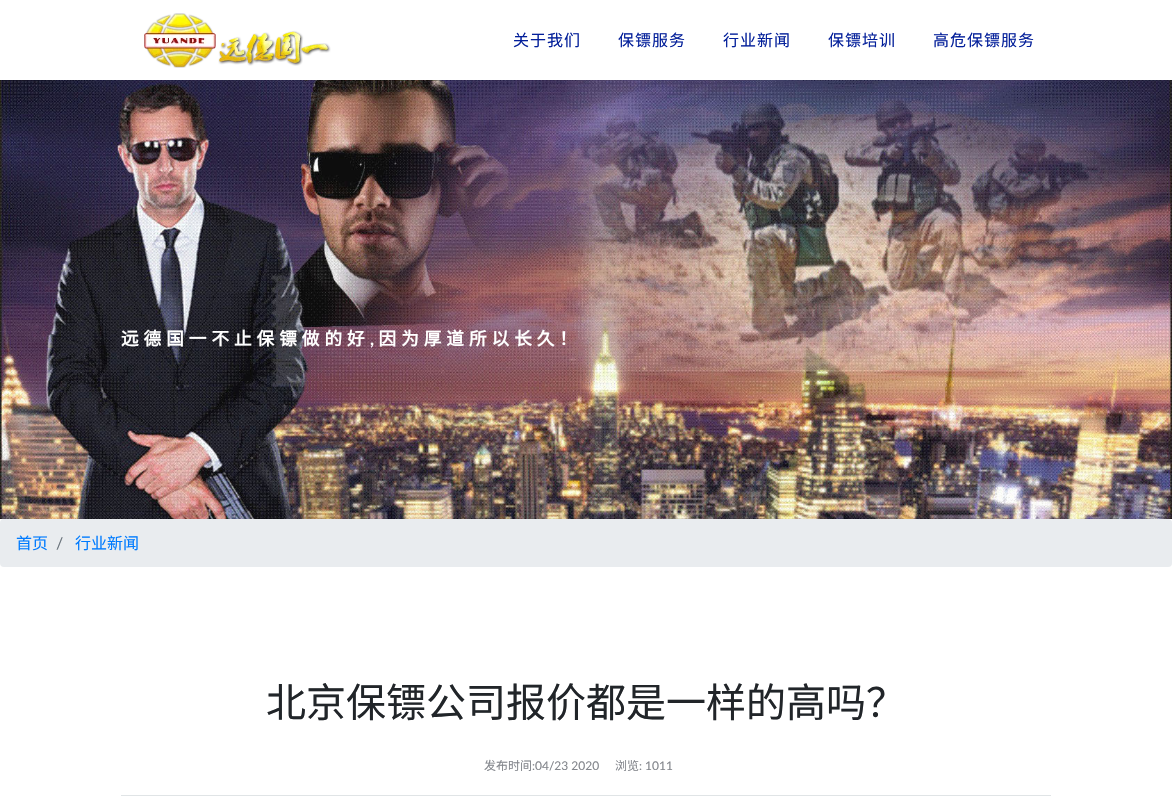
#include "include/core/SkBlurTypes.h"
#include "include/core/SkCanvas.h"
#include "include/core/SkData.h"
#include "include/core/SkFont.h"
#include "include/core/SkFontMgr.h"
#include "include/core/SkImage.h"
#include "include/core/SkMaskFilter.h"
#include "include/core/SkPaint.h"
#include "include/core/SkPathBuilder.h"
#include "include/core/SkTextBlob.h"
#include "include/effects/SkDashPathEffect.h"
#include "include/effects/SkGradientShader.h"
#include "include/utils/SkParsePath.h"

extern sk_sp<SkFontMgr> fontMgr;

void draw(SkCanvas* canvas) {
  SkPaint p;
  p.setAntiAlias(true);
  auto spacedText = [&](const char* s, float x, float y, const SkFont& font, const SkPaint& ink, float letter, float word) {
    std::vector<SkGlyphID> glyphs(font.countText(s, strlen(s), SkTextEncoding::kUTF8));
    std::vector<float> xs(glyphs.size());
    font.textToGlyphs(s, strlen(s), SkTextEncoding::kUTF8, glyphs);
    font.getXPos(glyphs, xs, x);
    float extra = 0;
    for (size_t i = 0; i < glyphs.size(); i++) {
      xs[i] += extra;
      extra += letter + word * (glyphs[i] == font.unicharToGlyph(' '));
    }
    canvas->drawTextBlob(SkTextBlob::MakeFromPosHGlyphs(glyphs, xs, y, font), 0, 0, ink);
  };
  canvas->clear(SK_ColorWHITE);
  canvas->drawImageRect(SkImages::DeferredFromEncodedData(SkData::MakeFromFileName("images/1.png")), SkRect::MakeLTRB(144, 13, 331, 68), SkSamplingOptions());
  canvas->drawImageRect(SkImages::DeferredFromEncodedData(SkData::MakeFromFileName("images/2.png")), SkRect::MakeLTRB(0, 80, 1172, 519), SkSamplingOptions());
  p.setColor(SkColorSetRGB(233, 236, 239));
  canvas->drawRoundRect(SkRect::MakeLTRB(0, 519, 1172, 567), 4, 4, p);
  p.setColor(SkColorSetRGB(224, 228, 230));
  canvas->drawRect(SkRect::MakeLTRB(121, 795, 1051, 796), p);
  SkFont font1(fontMgr->matchFamilyStyle("Noto Sans CJK SC", SkFontStyle::Normal()), 16);
  font1.setSubpixel(true);
  p.setColor(SkColorSetRGB(3, 31, 154));
  spacedText("关于我们", 513, 46, font1, p, 1, 0);
  spacedText("保镖服务", 618, 46, font1, p, 1, 0);
  spacedText("行业新闻", 723, 46, font1, p, 1, 0);
  spacedText("保镖培训", 828, 46, font1, p, 1, 0);
  spacedText("高危保镖服务", 933, 46, font1, p, 1, 0);
  SkFont font2(fontMgr->matchFamilyStyle("Noto Sans CJK SC", SkFontStyle::Bold()), 17.6f);
  font2.setSubpixel(true);
  p.setColor(SK_ColorWHITE);
  spacedText("远德国一不止保镖做的好 因为厚道所以长久！", 121, 345, font2, p, 5, 0);
  SkFont font3(fontMgr->matchFamilyStyle("Lato", SkFontStyle(600, SkFontStyle::kNormal_Width, SkFontStyle::kUpright_Slant)), 17.6f);
  font3.setSubpixel(true);
  spacedText(",", 370, 345, font3, p, 5, 0);
  p.setColor(SkColorSetRGB(0, 123, 255));
  canvas->drawString("首页", 16, 549, font1, p);
  SkFont font4(fontMgr->matchFamilyStyle("Lato", SkFontStyle::Normal()), 16);
  font4.setSubpixel(true);
  p.setColor(SkColorSetRGB(108, 117, 125));
  canvas->drawString("/", 56, 549, font4, p);
  p.setColor(SkColorSetRGB(0, 123, 255));
  canvas->drawString("行业新闻", 75, 549, font1, p);
  SkFont font5(fontMgr->matchFamilyStyle("Noto Sans CJK SC", SkFontStyle::Normal()), 40);
  font5.setSubpixel(true);
  p.setColor(SkColorSetRGB(33, 37, 41));
  canvas->drawString("北京保镖公司报价都是一样的高吗？", 266, 717, font5, p);
  SkFont font6(fontMgr->matchFamilyStyle("Noto Sans CJK SC", SkFontStyle::Normal()), 12);
  font6.setSubpixel(true);
  p.setColor(SkColorSetRGB(131, 134, 140));
  canvas->drawString("发布时间", 484, 770, font6, p);
  SkFont font7(fontMgr->matchFamilyStyle("Lato", SkFontStyle::Normal()), 12);
  font7.setSubpixel(true);
  canvas->drawString(":04/23 2020", 532, 770, font7, p);
  canvas->drawString("浏览", 615, 770, font6, p);
  canvas->drawString(": 1011", 639, 770, font7, p);
}
